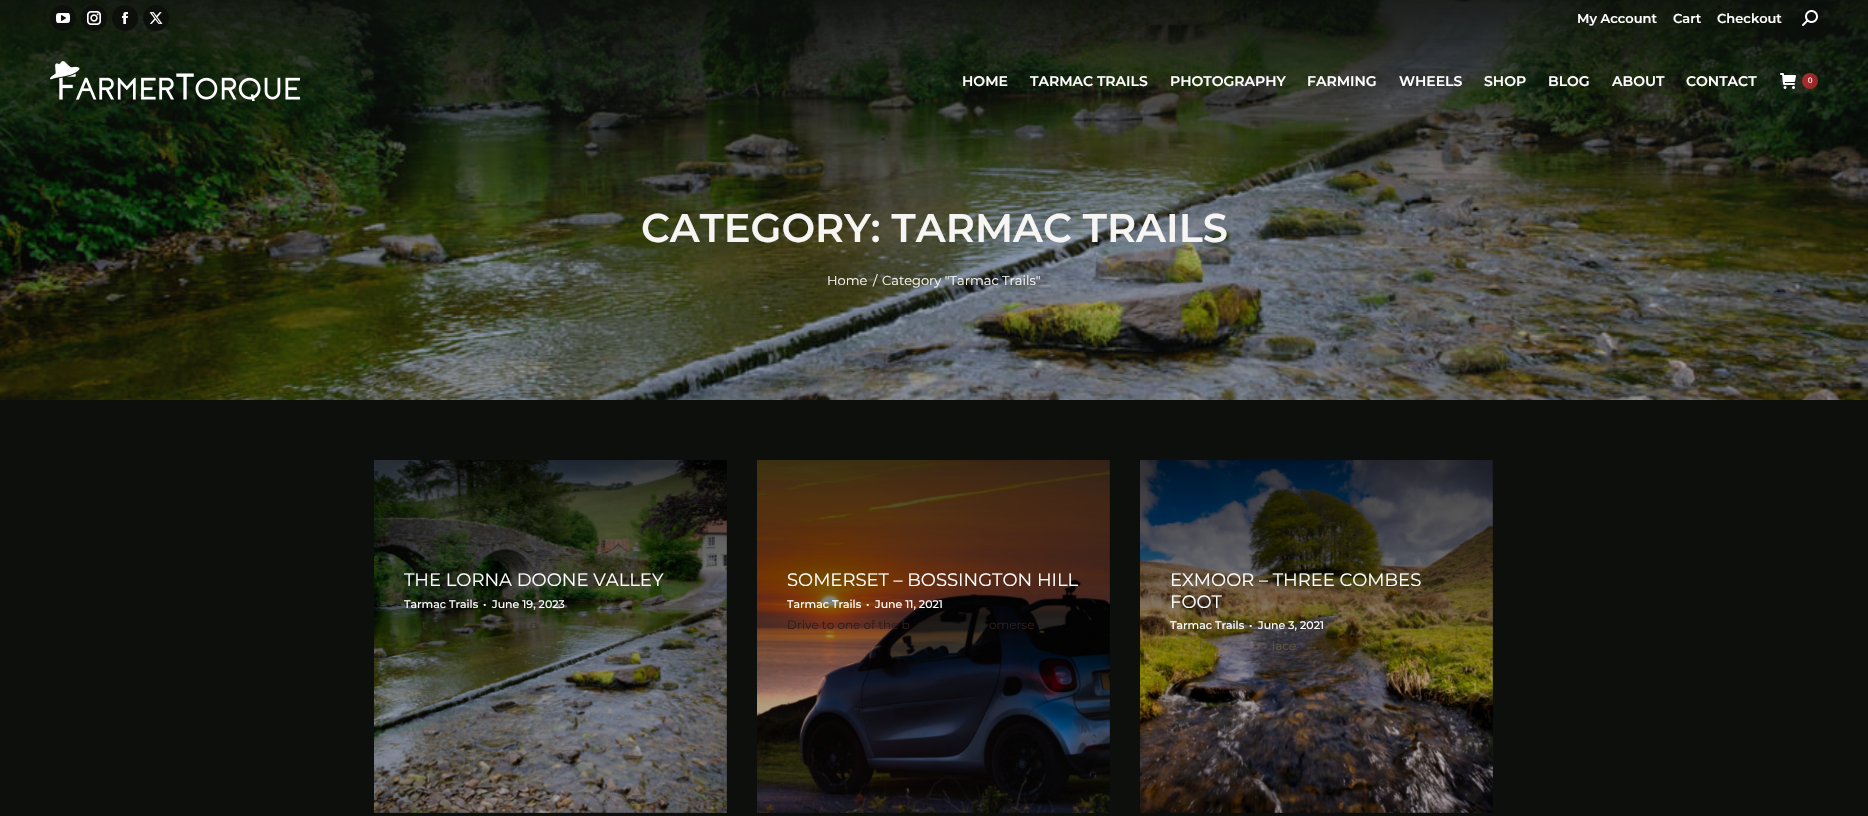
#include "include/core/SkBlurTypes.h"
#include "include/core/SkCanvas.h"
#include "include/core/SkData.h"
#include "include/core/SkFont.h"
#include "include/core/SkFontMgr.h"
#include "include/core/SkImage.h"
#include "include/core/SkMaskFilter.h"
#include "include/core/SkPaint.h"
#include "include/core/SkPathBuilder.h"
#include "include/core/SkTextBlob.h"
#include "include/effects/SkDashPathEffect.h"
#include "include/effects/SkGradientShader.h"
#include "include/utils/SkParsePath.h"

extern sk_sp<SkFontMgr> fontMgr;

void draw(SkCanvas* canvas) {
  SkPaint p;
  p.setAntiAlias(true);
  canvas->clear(SkColorSetRGB(12, 15, 12));
  canvas->drawImageRect(SkImages::DeferredFromEncodedData(SkData::MakeFromFileName("images/8.png")), SkRect::MakeLTRB(0, 0, 1868, 400), SkSamplingOptions());
  p.setColor(SkColorSetRGB(12, 15, 12));
  canvas->drawCircle(63, 18, 13, p);
  canvas->drawImageRect(SkImages::DeferredFromEncodedData(SkData::MakeFromFileName("images/1.png")), SkRect::MakeLTRB(56, 13, 70, 23), SkSamplingOptions());
  canvas->drawCircle(94, 18, 13, p);
  canvas->drawImageRect(SkImages::DeferredFromEncodedData(SkData::MakeFromFileName("images/2.png")), SkRect::MakeLTRB(87, 11, 101, 25), SkSamplingOptions());
  canvas->drawCircle(125, 18, 13, p);
  canvas->drawImageRect(SkImages::DeferredFromEncodedData(SkData::MakeFromFileName("images/3.png")), SkRect::MakeLTRB(122, 12, 128, 24), SkSamplingOptions());
  canvas->drawCircle(156, 18, 13, p);
  canvas->drawImageRect(SkImages::DeferredFromEncodedData(SkData::MakeFromFileName("images/4.png")), SkRect::MakeLTRB(149, 12, 163, 24), SkSamplingOptions());
  canvas->drawImageRect(SkImages::DeferredFromEncodedData(SkData::MakeFromFileName("images/5.png")), SkRect::MakeLTRB(1802, 10, 1818, 26), SkSamplingOptions());
  canvas->drawImageRect(SkImages::DeferredFromEncodedData(SkData::MakeFromFileName("images/6.png")), SkRect::MakeLTRB(50, 61, 300, 101), SkSamplingOptions());
  canvas->drawImageRect(SkImages::DeferredFromEncodedData(SkData::MakeFromFileName("images/7.png")), SkRect::MakeLTRB(1780, 73, 1796, 89), SkSamplingOptions());
  {
    const SkColor colors[] = {SkColorSetRGB(162, 44, 45), SkColorSetRGB(146, 39, 37)};
    const float stops[] = {0.3f, 1};
    const SkPoint ends[] = {{1802, 81}, {1818, 81}};
    p.setShader(SkGradientShader::MakeLinear(ends, colors, stops, 2, SkTileMode::kClamp));
    p.setAlpha(255);
  }
  canvas->drawCircle(1810, 81, 8, p);
  canvas->drawImageRect(SkImages::DeferredFromEncodedData(SkData::MakeFromFileName("images/9.png")), SkRect::MakeLTRB(374, 460, 727, 813), SkSamplingOptions());
  {
    const SkColor colors[] = {SkColorSetARGB(189, 0, 0, 0), SkColorSetARGB(0, 0, 0, 0)};
    const float stops[] = {0, 0.63f};
    const SkPoint ends[] = {{551, 460}, {551, 813}};
    p.setShader(SkGradientShader::MakeLinear(ends, colors, stops, 2, SkTileMode::kClamp));
    p.setAlpha(255);
  }
  canvas->drawRect(SkRect::MakeLTRB(374, 460, 727, 676), p);
  canvas->save();
  canvas->clipRect(SkRect::MakeLTRB(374, 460, 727, 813));
  canvas->clipRect(SkRect::MakeLTRB(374, 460, 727, 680));
  p.setShader(nullptr);
  p.setColor(SkColorSetARGB(77, 0, 0, 0));
  p.setMaskFilter(SkMaskFilter::MakeBlur(kNormal_SkBlurStyle, 50));
  canvas->drawRect(SkRect::MakeLTRB(274, 480, 827, 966), p);
  p.setMaskFilter(nullptr);
  canvas->restore();
  canvas->drawRect(SkRect::MakeLTRB(374, 680, 727, 813), p);
  canvas->drawImageRect(SkImages::DeferredFromEncodedData(SkData::MakeFromFileName("images/10.png")), SkRect::MakeLTRB(757, 460, 1110, 813), SkSamplingOptions());
  {
    const SkColor colors[] = {SkColorSetARGB(189, 0, 0, 0), SkColorSetARGB(0, 0, 0, 0)};
    const float stops[] = {0, 0.63f};
    const SkPoint ends[] = {{934, 460}, {934, 813}};
    p.setShader(SkGradientShader::MakeLinear(ends, colors, stops, 2, SkTileMode::kClamp));
    p.setAlpha(255);
  }
  canvas->drawRect(SkRect::MakeLTRB(757, 460, 1110, 676), p);
  canvas->save();
  canvas->clipRect(SkRect::MakeLTRB(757, 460, 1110, 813));
  canvas->clipRect(SkRect::MakeLTRB(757, 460, 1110, 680));
  p.setShader(nullptr);
  p.setColor(SkColorSetARGB(77, 0, 0, 0));
  p.setMaskFilter(SkMaskFilter::MakeBlur(kNormal_SkBlurStyle, 50));
  canvas->drawRect(SkRect::MakeLTRB(657, 480, 1210, 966), p);
  p.setMaskFilter(nullptr);
  canvas->restore();
  canvas->drawRect(SkRect::MakeLTRB(757, 680, 1110, 813), p);
  canvas->drawImageRect(SkImages::DeferredFromEncodedData(SkData::MakeFromFileName("images/11.png")), SkRect::MakeLTRB(1140, 460, 1493, 813), SkSamplingOptions());
  {
    const SkColor colors[] = {SkColorSetARGB(189, 0, 0, 0), SkColorSetARGB(0, 0, 0, 0)};
    const float stops[] = {0, 0.63f};
    const SkPoint ends[] = {{1317, 460}, {1317, 813}};
    p.setShader(SkGradientShader::MakeLinear(ends, colors, stops, 2, SkTileMode::kClamp));
    p.setAlpha(255);
  }
  canvas->drawRect(SkRect::MakeLTRB(1140, 460, 1493, 676), p);
  canvas->save();
  canvas->clipRect(SkRect::MakeLTRB(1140, 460, 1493, 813));
  canvas->clipRect(SkRect::MakeLTRB(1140, 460, 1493, 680));
  p.setShader(nullptr);
  p.setColor(SkColorSetARGB(77, 0, 0, 0));
  p.setMaskFilter(SkMaskFilter::MakeBlur(kNormal_SkBlurStyle, 50));
  canvas->drawRect(SkRect::MakeLTRB(1040, 480, 1593, 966), p);
  p.setMaskFilter(nullptr);
  canvas->restore();
  canvas->drawRect(SkRect::MakeLTRB(1140, 680, 1493, 813), p);
  SkFont font1(fontMgr->matchFamilyStyle("Montserrat", SkFontStyle(600, SkFontStyle::kNormal_Width, SkFontStyle::kUpright_Slant)), 13);
  font1.setSubpixel(true);
  p.setColor(SK_ColorWHITE);
  canvas->drawString("My Account", 1577, 23, font1, p);
  canvas->drawString("Cart", 1673, 23, font1, p);
  canvas->drawString("Checkout", 1717, 23, font1, p);
  SkFont font2(fontMgr->matchFamilyStyle("Montserrat", SkFontStyle(600, SkFontStyle::kNormal_Width, SkFontStyle::kUpright_Slant)), 14);
  font2.setSubpixel(true);
  canvas->drawString("HOME", 962, 86, font2, p);
  canvas->drawString("TARMAC TRAILS", 1030, 86, font2, p);
  canvas->drawString("PHOTOGRAPHY", 1170, 86, font2, p);
  canvas->drawString("FARMING", 1307, 86, font2, p);
  canvas->drawString("WHEELS", 1399, 86, font2, p);
  canvas->drawString("SHOP", 1484, 86, font2, p);
  canvas->drawString("BLOG", 1548, 86, font2, p);
  canvas->drawString("ABOUT", 1612, 86, font2, p);
  canvas->drawString("CONTACT", 1686, 86, font2, p);
  SkFont font3(fontMgr->matchFamilyStyle("Liberation Sans", SkFontStyle::Normal()), 8);
  font3.setSubpixel(true);
  canvas->drawString("0", 1808, 83, font3, p);
  SkFont font4(fontMgr->matchFamilyStyle("Montserrat", SkFontStyle(600, SkFontStyle::kNormal_Width, SkFontStyle::kUpright_Slant)), 40);
  font4.setSubpixel(true);
  p.setColor(SkColorSetRGB(246, 245, 243));
  canvas->drawString("CATEGORY: TARMAC TRAILS", 641, 242, font4, p);
  SkFont font5(fontMgr->matchFamilyStyle("Montserrat", SkFontStyle::Normal()), 13);
  font5.setSubpixel(true);
  canvas->drawString("Home", 827, 285, font5, p);
  canvas->drawString("/", 873, 285, font5, p);
  canvas->drawString("Category \"Tarmac Trails\"", 882, 285, font5, p);
  SkFont font6(fontMgr->matchFamilyStyle("Montserrat", SkFontStyle::Normal()), 18);
  font6.setSubpixel(true);
  p.setColor(SK_ColorWHITE);
  canvas->drawString("THE LORNA DOONE VALLEY", 404, 586, font6, p);
  SkFont font7(fontMgr->matchFamilyStyle("Montserrat", SkFontStyle(500, SkFontStyle::kNormal_Width, SkFontStyle::kUpright_Slant)), 11);
  font7.setSubpixel(true);
  canvas->drawString("Tarmac Trails", 404, 608, font7, p);
  canvas->drawString("•", 483, 608, font7, p);
  canvas->drawString("June 19, 2023", 492, 608, font7, p);
  SkFont font8(fontMgr->matchFamilyStyle("Montserrat", SkFontStyle::Normal()), 12);
  font8.setSubpixel(true);
  p.setColor(SkColorSetRGB(49, 54, 32));
  canvas->drawString("t", 422, 629, font8, p);
  canvas->drawString("e", 530, 629, font8, p);
  p.setColor(SK_ColorWHITE);
  canvas->drawString("SOMERSET – BOSSINGTON HILL", 787, 586, font6, p);
  canvas->drawString("Tarmac Trails", 787, 608, font7, p);
  canvas->drawString("•", 866, 608, font7, p);
  canvas->drawString("June 11, 2021", 875, 608, font7, p);
  p.setColor(SkColorSetRGB(49, 28, 22));
  canvas->drawString("Drive to one of the b", 787, 629, font8, p);
  canvas->drawString("omerse", 989, 629, font8, p);
  p.setColor(SK_ColorWHITE);
  canvas->drawString("EXMOOR – THREE COMBES", 1170, 586, font6, p);
  canvas->drawString("FOOT", 1170, 608, font6, p);
  canvas->drawString("Tarmac Trails", 1170, 629, font7, p);
  canvas->drawString("•", 1249, 629, font7, p);
  canvas->drawString("June 3, 2021", 1258, 629, font7, p);
  p.setColor(SkColorSetRGB(93, 87, 62));
  canvas->drawString("t", 1182, 650, font8, p);
  canvas->drawString("l", 1199, 650, font8, p);
  canvas->drawString("lace", 1272, 650, font8, p);
}
